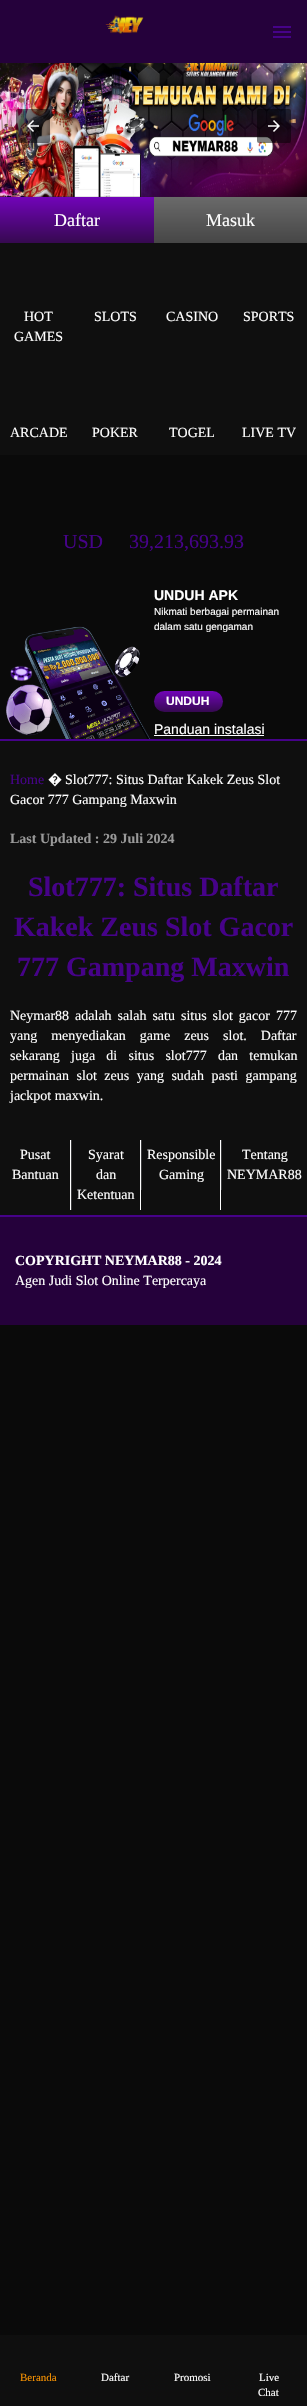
#include "include/core/SkBlurTypes.h"
#include "include/core/SkCanvas.h"
#include "include/core/SkData.h"
#include "include/core/SkFont.h"
#include "include/core/SkFontMgr.h"
#include "include/core/SkImage.h"
#include "include/core/SkMaskFilter.h"
#include "include/core/SkPaint.h"
#include "include/core/SkPathBuilder.h"
#include "include/core/SkTextBlob.h"
#include "include/effects/SkDashPathEffect.h"
#include "include/effects/SkGradientShader.h"
#include "include/utils/SkParsePath.h"

extern sk_sp<SkFontMgr> fontMgr;

void draw(SkCanvas* canvas) {
  SkPaint p;
  p.setAntiAlias(true);
  auto spacedText = [&](const char* s, float x, float y, const SkFont& font, const SkPaint& ink, float letter, float word) {
    std::vector<SkGlyphID> glyphs(font.countText(s, strlen(s), SkTextEncoding::kUTF8));
    std::vector<float> xs(glyphs.size());
    font.textToGlyphs(s, strlen(s), SkTextEncoding::kUTF8, glyphs);
    font.getXPos(glyphs, xs, x);
    float extra = 0;
    for (size_t i = 0; i < glyphs.size(); i++) {
      xs[i] += extra;
      extra += letter + word * (glyphs[i] == font.unicharToGlyph(' '));
    }
    canvas->drawTextBlob(SkTextBlob::MakeFromPosHGlyphs(glyphs, xs, y, font), 0, 0, ink);
  };
  canvas->clear(SkColorSetRGB(10, 10, 10));
  p.setColor(SkColorSetRGB(37, 1, 59));
  canvas->drawRect(SkRect::MakeLTRB(0, 0, 307, 63), p);
  canvas->drawImageRect(SkImages::DeferredFromEncodedData(SkData::MakeFromFileName("images/1.png")), SkRect::MakeLTRB(105, 15, 144, 34), SkSamplingOptions());
  p.setColor(SkColorSetRGB(70, 2, 137));
  canvas->drawRect(SkRect::MakeLTRB(273, 31, 291, 33), p);
  canvas->drawRect(SkRect::MakeLTRB(273, 26, 291, 28), p);
  canvas->drawRect(SkRect::MakeLTRB(273, 36, 291, 38), p);
  canvas->drawImageRect(SkImages::DeferredFromEncodedData(SkData::MakeFromFileName("images/2.png")), SkRect::MakeLTRB(0, 63, 307, 197), SkSamplingOptions());
  p.setColor(SkColorSetARGB(128, 0, 0, 0));
  canvas->drawRoundRect(SkRect::MakeLTRB(16, 109, 50, 143), 2, 2, p);
  canvas->drawImageRect(SkImages::DeferredFromEncodedData(SkData::MakeFromFileName("images/3.png")), SkRect::MakeLTRB(27, 120, 39, 132), SkSamplingOptions());
  canvas->drawRoundRect(SkRect::MakeLTRB(257, 109, 291, 143), 2, 2, p);
  canvas->drawImageRect(SkImages::DeferredFromEncodedData(SkData::MakeFromFileName("images/4.png")), SkRect::MakeLTRB(268, 120, 280, 132), SkSamplingOptions());
  {
    const SkColor colors[] = {SkColorSetRGB(113, 4, 185), SkColorSetRGB(54, 9, 80)};
    const float stops[] = {0, 1};
    const SkPoint ends[] = {{77, 197}, {77, 243}};
    p.setShader(SkGradientShader::MakeLinear(ends, colors, stops, 2, SkTileMode::kClamp));
    p.setAlpha(255);
  }
  canvas->drawRect(SkRect::MakeLTRB(0, 197, 154, 243), p);
  {
    const SkColor colors[] = {SkColorSetRGB(106, 106, 106), SkColorSetRGB(70, 70, 70)};
    const float stops[] = {0, 1};
    const SkPoint ends[] = {{231, 197}, {231, 243}};
    p.setShader(SkGradientShader::MakeLinear(ends, colors, stops, 2, SkTileMode::kClamp));
    p.setAlpha(255);
  }
  canvas->drawRect(SkRect::MakeLTRB(154, 197, 307, 243), p);
  p.setShader(nullptr);
  p.setColor(SkColorSetRGB(15, 15, 15));
  canvas->drawRect(SkRect::MakeLTRB(0, 243, 307, 455), p);
  canvas->drawImageRect(SkImages::DeferredFromEncodedData(SkData::MakeFromFileName("images/5.png")), SkRect::MakeLTRB(6, 626, 151, 739), SkSamplingOptions());
  {
    const SkColor colors[] = {SkColorSetRGB(113, 4, 185), SkColorSetRGB(54, 9, 80)};
    const float stops[] = {0, 1};
    const SkPoint ends[] = {{189, 691}, {189, 712}};
    p.setShader(SkGradientShader::MakeLinear(ends, colors, stops, 2, SkTileMode::kClamp));
    p.setAlpha(255);
  }
  canvas->drawRoundRect(SkRect::MakeLTRB(154, 691, 223, 712), 10.5f, 10.5f, p);
  p.setShader(nullptr);
  p.setColor(SK_ColorWHITE);
  canvas->drawRect(SkRect::MakeLTRB(154, 735, 264, 736), p);
  p.setColor(SkColorSetRGB(37, 1, 59));
  canvas->drawRect(SkRect::MakeLTRB(0, 1217, 307, 1325), p);
  p.setColor(SkColorSetRGB(70, 2, 137));
  canvas->drawRect(SkRect::MakeLTRB(0, 739, 307, 741), p);
  p.setColor(SkColorSetRGB(15, 15, 15));
  canvas->drawRect(SkRect::MakeLTRB(0, 741, 307, 1215), p);
  p.setColor(SK_ColorWHITE);
  canvas->drawRect(SkRect::MakeLTRB(70, 1140, 71, 1210), p);
  p.setColor(SkColorSetRGB(60, 60, 62));
  canvas->drawRect(SkRect::MakeLTRB(71, 1140, 72, 1210), p);
  p.setColor(SK_ColorWHITE);
  canvas->drawRect(SkRect::MakeLTRB(140, 1140, 141, 1210), p);
  p.setColor(SkColorSetRGB(60, 60, 62));
  canvas->drawRect(SkRect::MakeLTRB(141, 1140, 142, 1190), p);
  p.setColor(SK_ColorWHITE);
  canvas->drawRect(SkRect::MakeLTRB(220, 1140, 221, 1210), p);
  p.setColor(SkColorSetRGB(60, 60, 62));
  canvas->drawRect(SkRect::MakeLTRB(221, 1140, 222, 1190), p);
  p.setColor(SkColorSetRGB(70, 2, 137));
  canvas->drawRect(SkRect::MakeLTRB(0, 1215, 307, 1217), p);
  p.setColor(SkColorSetRGB(15, 15, 15));
  canvas->drawRect(SkRect::MakeLTRB(0, 2335, 307, 2406), p);
  SkFont font1(fontMgr->matchFamilyStyle("Liberation Serif", SkFontStyle::Normal()), 18);
  font1.setSubpixel(true);
  p.setColor(SK_ColorWHITE);
  canvas->drawString("Daftar", 54, 226, font1, p);
  canvas->drawString("Masuk", 206, 226, font1, p);
  SkFont font2(fontMgr->matchFamilyStyle("Liberation Serif", SkFontStyle::Normal()), 14);
  font2.setSubpixel(true);
  canvas->drawString("HOT", 24, 321, font2, p);
  canvas->drawString("GAMES", 14, 341, font2, p);
  canvas->drawString("SLOTS", 94, 321, font2, p);
  canvas->drawString("CASINO", 166, 321, font2, p);
  canvas->drawString("SPORTS", 243, 321, font2, p);
  canvas->drawString("ARCADE", 10, 437, font2, p);
  canvas->drawString("POKER", 92, 437, font2, p);
  canvas->drawString("TOGEL", 169, 437, font2, p);
  canvas->drawString("LIVE TV", 242, 437, font2, p);
  SkFont font3(fontMgr->matchFamilyStyle("Liberation Serif", SkFontStyle::Normal()), 20);
  font3.setSubpixel(true);
  p.setColor(SkColorSetRGB(70, 2, 137));
  canvas->drawString("USD", 63, 548, font3, p);
  canvas->drawString("39,213,693.93", 129, 548, font3, p);
  SkFont font4(fontMgr->matchFamilyStyle("Liberation Sans", SkFontStyle::Bold()), 14);
  font4.setSubpixel(true);
  p.setColor(SK_ColorWHITE);
  canvas->drawString("UNDUH APK", 154, 600, font4, p);
  SkFont font5(fontMgr->matchFamilyStyle("Liberation Sans", SkFontStyle::Normal()), 10);
  font5.setSubpixel(true);
  canvas->drawString("Nikmati berbagai permainan", 154, 615, font5, p);
  canvas->drawString("dalam satu gengaman", 154, 630, font5, p);
  SkFont font6(fontMgr->matchFamilyStyle("Liberation Sans", SkFontStyle::Bold()), 12);
  font6.setSubpixel(true);
  canvas->drawString("UNDUH", 166, 705, font6, p);
  SkFont font7(fontMgr->matchFamilyStyle("Liberation Sans", SkFontStyle::Normal()), 14);
  font7.setSubpixel(true);
  canvas->drawString("Panduan instalasi", 154, 734, font7, p);
  p.setColor(SkColorSetRGB(70, 2, 137));
  canvas->drawString("Home", 10, 784, font2, p);
  SkFont font8(fontMgr->matchFamilyStyle("Noto Sans", SkFontStyle::Normal()), 14);
  font8.setSubpixel(true);
  p.setColor(SK_ColorWHITE);
  canvas->drawString("�", 48, 784, font8, p);
  canvas->drawString("Slot777: Situs Daftar Kakek Zeus Slot", 65, 784, font2, p);
  canvas->drawString("Gacor 777 Gampang Maxwin", 10, 804, font2, p);
  SkFont font9(fontMgr->matchFamilyStyle("Liberation Serif", SkFontStyle::Bold()), 14);
  font9.setSubpixel(true);
  p.setColor(SkColorSetRGB(153, 153, 153));
  canvas->drawString("Last Updated : 29 Juli 2024", 10, 843, font9, p);
  SkFont font10(fontMgr->matchFamilyStyle("Liberation Serif", SkFontStyle::Bold()), 28);
  font10.setSubpixel(true);
  p.setColor(SkColorSetRGB(70, 2, 137));
  canvas->drawString("Slot777: Situs Daftar", 28, 896, font10, p);
  canvas->drawString("Kakek Zeus Slot Gacor", 14, 936, font10, p);
  canvas->drawString("777 Gampang Maxwin", 17, 976, font10, p);
  p.setColor(SK_ColorWHITE);
  spacedText("Neymar88 adalah salah satu situs slot gacor 777", 10, 1020, font2, p, 0, 2.5f);
  spacedText("yang menyediakan game zeus slot. Daftar", 10, 1040, font2, p, 0, 10.5f);
  spacedText("sekarang juga di situs slot777 dan temukan", 10, 1060, font2, p, 0, 7.75f);
  spacedText("permainan slot zeus yang sudah pasti gampang", 10, 1080, font2, p, 0, 4);
  canvas->drawString("jackpot maxwin.", 10, 1100, font2, p);
  canvas->drawString("Pusat", 20, 1159, font2, p);
  canvas->drawString("Bantuan", 12, 1179, font2, p);
  canvas->drawString("Syarat", 88, 1159, font2, p);
  canvas->drawString("dan", 96, 1179, font2, p);
  canvas->drawString("Ketentuan", 77, 1199, font2, p);
  canvas->drawString("Responsible", 147, 1159, font2, p);
  canvas->drawString("Gaming", 159, 1179, font2, p);
  canvas->drawString("Tentang", 242, 1159, font2, p);
  canvas->drawString("NEYMAR88", 227, 1179, font2, p);
  canvas->drawString("COPYRIGHT NEYMAR88 - 2024", 15, 1265, font9, p);
  canvas->drawString("Agen Judi Slot Online Terpercaya", 15, 1285, font2, p);
  SkFont font11(fontMgr->matchFamilyStyle("Liberation Serif", SkFontStyle::Normal()), 11);
  font11.setSubpixel(true);
  p.setColor(SkColorSetRGB(251, 148, 1));
  canvas->drawString("Beranda", 20, 2381, font11, p);
  p.setColor(SK_ColorWHITE);
  canvas->drawString("Daftar", 101, 2381, font11, p);
  canvas->drawString("Promosi", 174, 2381, font11, p);
  canvas->drawString("Live", 259, 2381, font11, p);
  canvas->drawString("Chat", 258, 2396, font11, p);
}
